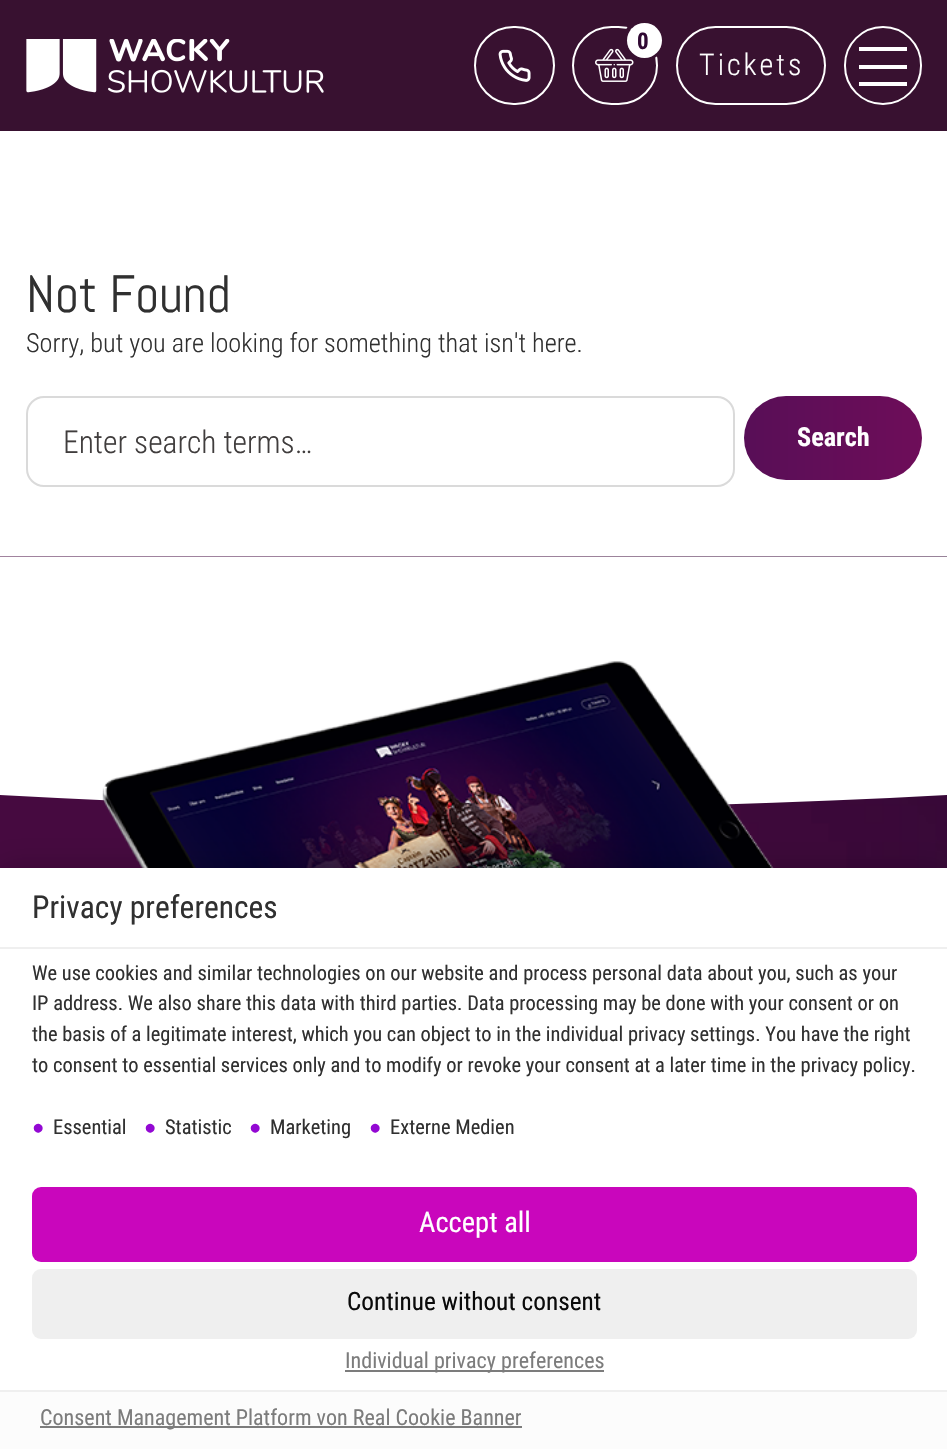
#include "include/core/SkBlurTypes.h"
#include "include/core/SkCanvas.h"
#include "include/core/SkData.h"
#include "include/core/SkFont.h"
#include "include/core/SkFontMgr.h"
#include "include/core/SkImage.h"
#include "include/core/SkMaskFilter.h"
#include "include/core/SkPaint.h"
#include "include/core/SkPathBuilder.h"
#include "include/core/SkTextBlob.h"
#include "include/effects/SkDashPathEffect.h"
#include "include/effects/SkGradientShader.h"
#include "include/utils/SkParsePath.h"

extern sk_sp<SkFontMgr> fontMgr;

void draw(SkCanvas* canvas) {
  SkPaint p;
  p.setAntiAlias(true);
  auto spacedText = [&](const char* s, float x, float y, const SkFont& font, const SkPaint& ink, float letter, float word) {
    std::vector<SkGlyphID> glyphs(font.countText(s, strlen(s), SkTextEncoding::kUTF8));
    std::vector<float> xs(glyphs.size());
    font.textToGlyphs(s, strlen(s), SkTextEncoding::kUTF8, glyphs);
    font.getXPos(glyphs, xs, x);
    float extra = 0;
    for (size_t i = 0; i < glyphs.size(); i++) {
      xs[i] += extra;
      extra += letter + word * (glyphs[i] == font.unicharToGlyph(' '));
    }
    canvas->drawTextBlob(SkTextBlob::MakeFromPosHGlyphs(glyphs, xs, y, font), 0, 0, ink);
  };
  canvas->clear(SK_ColorWHITE);
  p.setColor(SkColorSetRGB(56, 17, 48));
  canvas->drawRect(SkRect::MakeLTRB(0, 0, 947, 131), p);
  canvas->drawImageRect(SkImages::DeferredFromEncodedData(SkData::MakeFromFileName("images/1.png")), SkRect::MakeLTRB(26, 39, 324, 93), SkSamplingOptions());
  p.setStyle(SkPaint::kStroke_Style);
  p.setStrokeWidth(2);
  p.setColor(SK_ColorWHITE);
  canvas->drawRoundRect(SkRect::MakeLTRB(475, 27, 554, 104), 38.5f, 38.5f, p);
  canvas->drawImageRect(SkImages::DeferredFromEncodedData(SkData::MakeFromFileName("images/2.png")), SkRect::MakeLTRB(498, 49, 531, 82), SkSamplingOptions());
  canvas->drawRoundRect(SkRect::MakeLTRB(573, 27, 657, 104), 38.5f, 38.5f, p);
  canvas->drawImageRect(SkImages::DeferredFromEncodedData(SkData::MakeFromFileName("images/3.png")), SkRect::MakeLTRB(595, 48, 634, 82), SkSamplingOptions());
  p.setStrokeWidth(4);
  p.setColor(SkColorSetRGB(56, 17, 48));
  canvas->drawCircle(644, 40, 19, p);
  p.setStyle(SkPaint::kFill_Style);
  p.setColor(SK_ColorWHITE);
  canvas->drawCircle(644.5f, 40.5f, 17.5f, p);
  p.setStyle(SkPaint::kStroke_Style);
  p.setStrokeWidth(2);
  canvas->drawRoundRect(SkRect::MakeLTRB(677, 27, 825, 104), 38.5f, 38.5f, p);
  canvas->drawRoundRect(SkRect::MakeLTRB(845, 27, 921, 104), 38, 38, p);
  p.setStyle(SkPaint::kFill_Style);
  canvas->drawRect(SkRect::MakeLTRB(859, 47, 907, 51), p);
  canvas->drawRect(SkRect::MakeLTRB(859, 65, 907, 69), p);
  canvas->drawRect(SkRect::MakeLTRB(859, 82, 907, 86), p);
  p.setStyle(SkPaint::kStroke_Style);
  p.setColor(SkColorSetRGB(218, 218, 218));
  canvas->drawRoundRect(SkRect::MakeLTRB(27, 397, 734, 486), 17, 17, p);
  p.setStyle(SkPaint::kFill_Style);
  {
    const SkColor colors[] = {SkColorSetRGB(88, 14, 87), SkColorSetRGB(110, 13, 89)};
    const float stops[] = {0, 1};
    const SkPoint ends[] = {{744, 438}, {922, 438}};
    p.setShader(SkGradientShader::MakeLinear(ends, colors, stops, 2, SkTileMode::kClamp));
    p.setAlpha(255);
  }
  canvas->drawRoundRect(SkRect::MakeLTRB(744, 396, 922, 480), 42, 42, p);
  canvas->drawImageRect(SkImages::DeferredFromEncodedData(SkData::MakeFromFileName("images/4.png")), SkRect::MakeLTRB(0, 556, 947, 868), SkSamplingOptions());
  canvas->save();
  canvas->clipRect(SkRect::MakeLTRB(0, 557, 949, 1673));
  p.setShader(nullptr);
  p.setColor(SK_ColorWHITE);
  canvas->drawPath(SkPathBuilder().moveTo(-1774, -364).lineTo(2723, -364).lineTo(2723, 222).cubicTo(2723, 546, 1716, 808, 474, 808).cubicTo(-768, 808, -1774, 546, -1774, 222).close().detach(), p);
  canvas->restore();
  canvas->drawImageRect(SkImages::DeferredFromEncodedData(SkData::MakeFromFileName("images/5.png")), SkRect::MakeLTRB(102, 661, 774, 868), SkSamplingOptions());
  p.setColor(SkColorSetARGB(51, 0, 0, 0));
  p.setMaskFilter(SkMaskFilter::MakeBlur(kNormal_SkBlurStyle, 15));
  canvas->drawRect(SkRect::MakeLTRB(0, 868, 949, 1449), p);
  p.setMaskFilter(nullptr);
  p.setColor(SK_ColorWHITE);
  canvas->drawRect(SkRect::MakeLTRB(0, 868, 947, 947), p);
  p.setColor(SkColorSetRGB(239, 239, 239));
  canvas->drawRect(SkRect::MakeLTRB(0, 947, 947, 949), p);
  p.setColor(SK_ColorWHITE);
  canvas->drawRect(SkRect::MakeLTRB(0, 949, 947, 1390), p);
  p.setColor(SkColorSetRGB(201, 6, 188));
  canvas->drawRoundRect(SkRect::MakeLTRB(32, 1187, 917, 1262), 9, 9, p);
  p.setColor(SkColorSetRGB(239, 239, 239));
  canvas->drawRoundRect(SkRect::MakeLTRB(32, 1269, 917, 1339), 9, 9, p);
  p.setColor(SkColorSetRGB(124, 124, 124));
  canvas->drawRect(SkRect::MakeLTRB(345, 1370, 604, 1372), p);
  p.setColor(SkColorSetRGB(252, 252, 252));
  canvas->drawRect(SkRect::MakeLTRB(0, 1392, 947, 1449), p);
  p.setColor(SkColorSetRGB(239, 239, 239));
  canvas->drawRect(SkRect::MakeLTRB(0, 1390, 947, 1392), p);
  p.setColor(SkColorSetRGB(124, 124, 124));
  canvas->drawRect(SkRect::MakeLTRB(40, 1426, 522, 1428), p);
  SkFont font1(fontMgr->matchFamilyStyle("Roboto Condensed", SkFontStyle::Bold()), 23);
  font1.setSubpixel(true);
  p.setColor(SkColorSetRGB(48, 9, 51));
  spacedText("0", 637, 49, font1, p, 3, 0);
  SkFont font2(fontMgr->matchFamilyStyle("Roboto Condensed", SkFontStyle(300, SkFontStyle::kNormal_Width, SkFontStyle::kUpright_Slant)), 30);
  font2.setSubpixel(true);
  p.setColor(SK_ColorWHITE);
  spacedText("Tickets", 699, 75, font2, p, 3, 0);
  SkFont font3(fontMgr->matchFamilyStyle("Abel", SkFontStyle::Normal()), 52.5f);
  font3.setSubpixel(true);
  p.setColor(SkColorSetRGB(48, 48, 48));
  canvas->drawString("Not Found", 26, 312, font3, p);
  SkFont font4(fontMgr->matchFamilyStyle("Roboto Condensed", SkFontStyle(300, SkFontStyle::kNormal_Width, SkFontStyle::kUpright_Slant)), 26.25f);
  font4.setSubpixel(true);
  canvas->drawString("Sorry, but you are looking for something that isn't here.", 26, 352, font4, p);
  SkFont font5(fontMgr->matchFamilyStyle("Roboto Condensed", SkFontStyle(300, SkFontStyle::kNormal_Width, SkFontStyle::kUpright_Slant)), 31.5f);
  font5.setSubpixel(true);
  p.setColor(SkColorSetRGB(64, 61, 61));
  canvas->drawString("Enter search terms…", 63, 453, font5, p);
  SkFont font6(fontMgr->matchFamilyStyle("Roboto Condensed", SkFontStyle::Bold()), 26.25f);
  font6.setSubpixel(true);
  p.setColor(SK_ColorWHITE);
  canvas->drawString("Search", 797, 446, font6, p);
  SkFont font7(fontMgr->matchFamilyStyle("Roboto Condensed", SkFontStyle::Normal()), 31.5f);
  font7.setSubpixel(true);
  p.setColor(SkColorSetRGB(48, 48, 48));
  canvas->drawString("Privacy preferences", 32, 918, font7, p);
  SkFont font8(fontMgr->matchFamilyStyle("Roboto Condensed", SkFontStyle::Normal()), 20.45f);
  font8.setSubpixel(true);
  canvas->drawString("We use cookies and similar technologies on our website and process personal data about you, such as your", 32, 980, font8, p);
  canvas->drawString("IP address. We also share this data with third parties. Data processing may be done with your consent or on", 32, 1010, font8, p);
  canvas->drawString("the basis of a legitimate interest, which you can object to in the individual privacy settings. You have the right", 32, 1041, font8, p);
  canvas->drawString("to consent to essential services only and to modify or revoke your consent at a later time in the privacy policy.", 32, 1072, font8, p);
  SkFont font9(fontMgr->matchFamilyStyle("Liberation Sans", SkFontStyle::Italic()), 20.45f);
  font9.setSubpixel(true);
  p.setColor(SkColorSetRGB(147, 8, 211));
  canvas->drawString("●", 32, 1134, font9, p);
  p.setColor(SkColorSetRGB(48, 48, 48));
  canvas->drawString("Essential", 53, 1134, font8, p);
  p.setColor(SkColorSetRGB(147, 8, 211));
  canvas->drawString("●", 144, 1134, font9, p);
  p.setColor(SkColorSetRGB(48, 48, 48));
  canvas->drawString("Statistic", 165, 1134, font8, p);
  p.setColor(SkColorSetRGB(147, 8, 211));
  canvas->drawString("●", 249, 1134, font9, p);
  p.setColor(SkColorSetRGB(48, 48, 48));
  canvas->drawString("Marketing", 270, 1134, font8, p);
  p.setColor(SkColorSetRGB(147, 8, 211));
  canvas->drawString("●", 369, 1134, font9, p);
  p.setColor(SkColorSetRGB(48, 48, 48));
  canvas->drawString("Externe Medien", 390, 1134, font8, p);
  SkFont font10(fontMgr->matchFamilyStyle("Roboto Condensed", SkFontStyle::Normal()), 28.5f);
  font10.setSubpixel(true);
  p.setColor(SK_ColorWHITE);
  canvas->drawString("Accept all", 419, 1232, font10, p);
  SkFont font11(fontMgr->matchFamilyStyle("Roboto Condensed", SkFontStyle::Normal()), 25.25f);
  font11.setSubpixel(true);
  p.setColor(SkColorSetRGB(10, 10, 10));
  canvas->drawString("Continue without consent", 347, 1310, font11, p);
  SkFont font12(fontMgr->matchFamilyStyle("Roboto Condensed", SkFontStyle::Normal()), 22.05f);
  font12.setSubpixel(true);
  p.setColor(SkColorSetRGB(124, 124, 124));
  canvas->drawString("Individual privacy preferences", 345, 1368, font12, p);
  canvas->drawString("Consent Management Platform von Real Cookie Banner", 40, 1425, font12, p);
}
